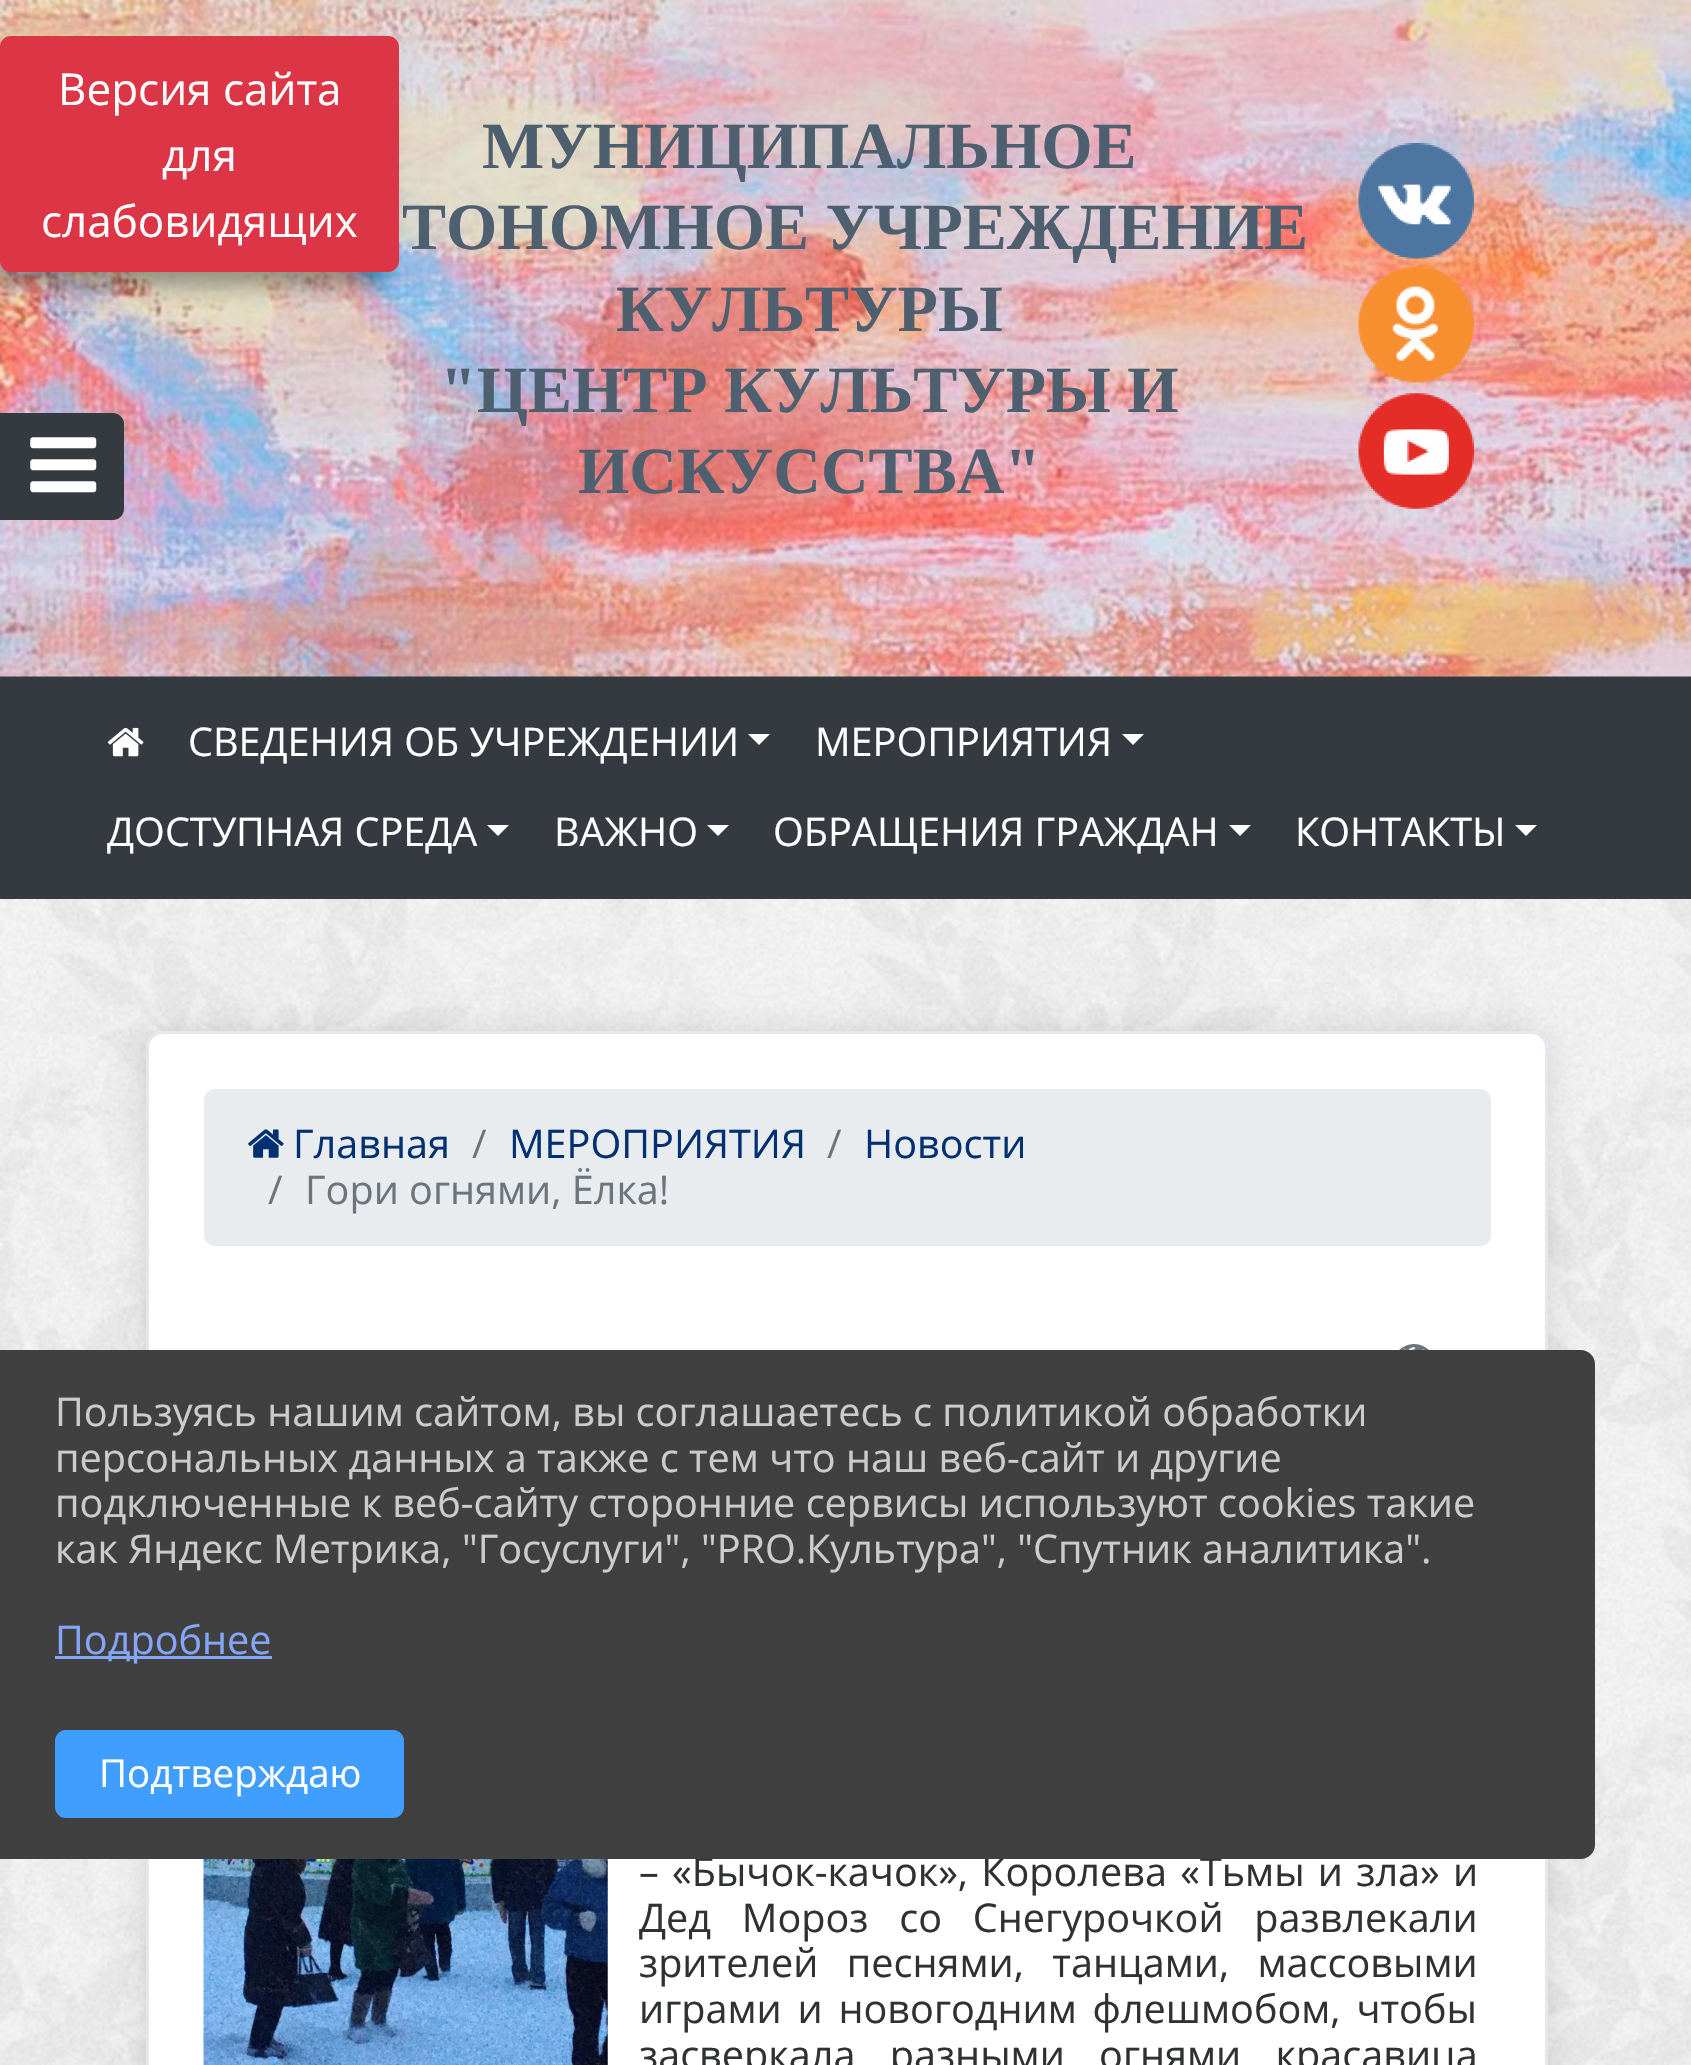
#include "include/core/SkBlurTypes.h"
#include "include/core/SkCanvas.h"
#include "include/core/SkData.h"
#include "include/core/SkFont.h"
#include "include/core/SkFontMgr.h"
#include "include/core/SkImage.h"
#include "include/core/SkMaskFilter.h"
#include "include/core/SkPaint.h"
#include "include/core/SkPathBuilder.h"
#include "include/core/SkTextBlob.h"
#include "include/effects/SkDashPathEffect.h"
#include "include/effects/SkGradientShader.h"
#include "include/utils/SkParsePath.h"

extern sk_sp<SkFontMgr> fontMgr;

void draw(SkCanvas* canvas) {
  SkPaint p;
  p.setAntiAlias(true);
  auto spacedText = [&](const char* s, float x, float y, const SkFont& font, const SkPaint& ink, float letter, float word) {
    std::vector<SkGlyphID> glyphs(font.countText(s, strlen(s), SkTextEncoding::kUTF8));
    std::vector<float> xs(glyphs.size());
    font.textToGlyphs(s, strlen(s), SkTextEncoding::kUTF8, glyphs);
    font.getXPos(glyphs, xs, x);
    float extra = 0;
    for (size_t i = 0; i < glyphs.size(); i++) {
      xs[i] += extra;
      extra += letter + word * (glyphs[i] == font.unicharToGlyph(' '));
    }
    canvas->drawTextBlob(SkTextBlob::MakeFromPosHGlyphs(glyphs, xs, y, font), 0, 0, ink);
  };
  canvas->clear(SK_ColorWHITE);
  canvas->drawImageRect(SkImages::DeferredFromEncodedData(SkData::MakeFromFileName("images/1.png")), SkRect::MakeLTRB(0, 899, 1691, 2065), SkSamplingOptions());
  p.setColor(SkColorSetRGB(48, 65, 86));
  canvas->drawRect(SkRect::MakeLTRB(0, 676, 1691, 677), p);
  canvas->drawImageRect(SkImages::DeferredFromEncodedData(SkData::MakeFromFileName("images/3.png")), SkRect::MakeLTRB(0, 0, 1691, 677), SkSamplingOptions());
  p.setColor(SkColorSetARGB(89, 0, 0, 0));
  p.setMaskFilter(SkMaskFilter::MakeBlur(kNormal_SkBlurStyle, 11));
  canvas->drawRoundRect(SkRect::MakeLTRB(-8, 55, 385, 286), 8, 8, p);
  p.setMaskFilter(nullptr);
  p.setColor(SkColorSetRGB(220, 53, 69));
  canvas->drawRoundRect(SkRect::MakeLTRB(1.5f, 37.5f, 397.5f, 270.5f), 9.5f, 9.5f, p);
  p.setStyle(SkPaint::kStroke_Style);
  p.setStrokeWidth(3);
  canvas->drawRoundRect(SkRect::MakeLTRB(1.5f, 37.5f, 397.5f, 270.5f), 9.5f, 9.5f, p);
  p.setStyle(SkPaint::kFill_Style);
  p.setColor(SkColorSetRGB(52, 58, 64));
  canvas->drawPath(SkPathBuilder().moveTo(1.5f, 414.5f).lineTo(113, 414.5f).cubicTo(118, 414.5f, 122.5f, 419, 122.5f, 424).lineTo(122.5f, 509).cubicTo(122.5f, 514, 118, 518.5f, 113, 518.5f).lineTo(1.5f, 518.5f).close().detach(), p);
  p.setStyle(SkPaint::kStroke_Style);
  canvas->drawPath(SkPathBuilder().moveTo(1.5f, 414.5f).lineTo(113, 414.5f).cubicTo(118, 414.5f, 122.5f, 419, 122.5f, 424).lineTo(122.5f, 509).cubicTo(122.5f, 514, 118, 518.5f, 113, 518.5f).lineTo(1.5f, 518.5f).close().detach(), p);
  canvas->drawImageRect(SkImages::DeferredFromEncodedData(SkData::MakeFromFileName("images/2.png")), SkRect::MakeLTRB(30, 437, 97, 493), SkSamplingOptions());
  canvas->drawImageRect(SkImages::DeferredFromEncodedData(SkData::MakeFromFileName("images/4.png")), SkRect::MakeLTRB(1358, 143, 1474, 259), SkSamplingOptions());
  canvas->drawImageRect(SkImages::DeferredFromEncodedData(SkData::MakeFromFileName("images/5.png")), SkRect::MakeLTRB(1358, 266, 1474, 383), SkSamplingOptions());
  canvas->drawImageRect(SkImages::DeferredFromEncodedData(SkData::MakeFromFileName("images/6.png")), SkRect::MakeLTRB(1358, 393, 1474, 509), SkSamplingOptions());
  p.setStyle(SkPaint::kFill_Style);
  canvas->drawRect(SkRect::MakeLTRB(0, 677, 1691, 899), p);
  canvas->drawImageRect(SkImages::DeferredFromEncodedData(SkData::MakeFromFileName("images/7.png")), SkRect::MakeLTRB(107, 727, 144, 757), SkSamplingOptions());
  p.setColor(SK_ColorWHITE);
  canvas->drawPath(SkPathBuilder().moveTo(748, 734).lineTo(770, 734).lineTo(759, 745).close().detach(), p);
  canvas->drawPath(SkPathBuilder().moveTo(1122, 734).lineTo(1144, 734).lineTo(1133, 745).close().detach(), p);
  canvas->drawPath(SkPathBuilder().moveTo(487, 825).lineTo(509, 825).lineTo(498, 836).close().detach(), p);
  canvas->drawPath(SkPathBuilder().moveTo(707, 825).lineTo(729, 825).lineTo(718, 836).close().detach(), p);
  canvas->drawPath(SkPathBuilder().moveTo(1229, 825).lineTo(1251, 825).lineTo(1240, 836).close().detach(), p);
  canvas->drawPath(SkPathBuilder().moveTo(1515, 825).lineTo(1537, 825).lineTo(1526, 836).close().detach(), p);
  p.setColor(SkColorSetARGB(31, 0, 0, 0));
  p.setMaskFilter(SkMaskFilter::MakeBlur(kNormal_SkBlurStyle, 16.5f));
  canvas->drawRoundRect(SkRect::MakeLTRB(146, 1031, 1548, 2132), 17, 17, p);
  p.setMaskFilter(nullptr);
  p.setColor(SK_ColorWHITE);
  canvas->drawPath(SkPathBuilder().moveTo(163, 1031).lineTo(1531, 1031).cubicTo(1540.5f, 1031, 1548, 1038.5f, 1548, 1048).lineTo(1548, 2065).lineTo(146, 2065).lineTo(146, 1048).cubicTo(146, 1038.5f, 153.5f, 1031, 163, 1031).close().detach(), p);
  p.setStyle(SkPaint::kStroke_Style);
  p.setColor(SkColorSetRGB(228, 231, 237));
  canvas->drawRoundRect(SkRect::MakeLTRB(147.5f, 1032.5f, 1546.5f, 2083.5f), 15.5f, 15.5f, p);
  p.setStyle(SkPaint::kFill_Style);
  p.setColor(SkColorSetRGB(233, 236, 239));
  canvas->drawRoundRect(SkRect::MakeLTRB(204, 1089, 1491, 1246), 11, 11, p);
  canvas->drawImageRect(SkImages::DeferredFromEncodedData(SkData::MakeFromFileName("images/8.png")), SkRect::MakeLTRB(248, 1129, 284, 1158), SkSamplingOptions());
  canvas->drawImageRect(SkImages::DeferredFromEncodedData(SkData::MakeFromFileName("images/9.png")), SkRect::MakeLTRB(1399, 1344, 1429, 1350), SkSamplingOptions());
  canvas->drawImageRect(SkImages::DeferredFromEncodedData(SkData::MakeFromFileName("images/10.png")), SkRect::MakeLTRB(203, 1859, 608, 2065), SkSamplingOptions());
  SkFont font1(fontMgr->matchFamilyStyle("Open Sans", SkFontStyle::Normal()), 44);
  font1.setSubpixel(true);
  p.setColor(SK_ColorWHITE);
  canvas->drawString("Версия сайта", 58, 105, font1, p);
  canvas->drawString("для", 162, 171, font1, p);
  canvas->drawString("слабовидящих", 41, 237, font1, p);
  SkFont font2(fontMgr->matchFamilyStyle("Liberation Serif", SkFontStyle::Bold()), 66);
  font2.setSubpixel(true);
  p.setColor(SkColorSetRGB(78, 95, 112));
  canvas->drawString("МУНИЦИПАЛЬНОЕ", 482, 168, font2, p);
  canvas->drawString("ТОНОМНОЕ УЧРЕЖДЕНИЕ", 402, 249, font2, p);
  canvas->drawString("КУЛЬТУРЫ", 616, 331, font2, p);
  canvas->drawString("\"ЦЕНТР КУЛЬТУРЫ И", 440, 412, font2, p);
  canvas->drawString("ИСКУССТВА\"", 578, 493, font2, p);
  SkFont font3(fontMgr->matchFamilyStyle("Open Sans", SkFontStyle::Normal()), 39.6f);
  font3.setSubpixel(true);
  p.setColor(SK_ColorWHITE);
  canvas->drawString("СВЕДЕНИЯ ОБ УЧРЕЖДЕНИИ", 188, 756, font3, p);
  canvas->drawString("МЕРОПРИЯТИЯ", 815, 756, font3, p);
  canvas->drawString("ДОСТУПНАЯ СРЕДА", 107, 846, font3, p);
  canvas->drawString("ВАЖНО", 554, 846, font3, p);
  canvas->drawString("ОБРАЩЕНИЯ ГРАЖДАН", 773, 846, font3, p);
  canvas->drawString("КОНТАКТЫ", 1295, 846, font3, p);
  p.setColor(SkColorSetRGB(0, 47, 114));
  canvas->drawString("Главная", 293, 1158, font3, p);
  p.setColor(SkColorSetRGB(108, 117, 125));
  canvas->drawString("/", 472, 1158, font3, p);
  p.setColor(SkColorSetRGB(0, 47, 114));
  canvas->drawString("МЕРОПРИЯТИЯ", 509, 1158, font3, p);
  p.setColor(SkColorSetRGB(108, 117, 125));
  canvas->drawString("/", 827, 1158, font3, p);
  p.setColor(SkColorSetRGB(0, 47, 114));
  canvas->drawString("Новости", 864, 1158, font3, p);
  p.setColor(SkColorSetRGB(108, 117, 125));
  canvas->drawString("/", 268, 1204, font3, p);
  canvas->drawString("Гори огнями, Ёлка!", 305, 1204, font3, p);
  p.setColor(SkColorSetRGB(48, 49, 51));
  spacedText("– «Бычок-качок», Королева «Тьмы и зла» и", 639, 1886, font3, p, 0, 3);
  spacedText("Дед Мороз со Снегурочкой развлекали", 639, 1932, font3, p, 0, 20.5f);
  spacedText("зрителей песнями, танцами, массовыми", 639, 1977, font3, p, 0, 18);
  spacedText("играми и новогодним флешмобом, чтобы", 639, 2023, font3, p, 0, 5.5f);
  spacedText("засверкала разными огнями красавица", 639, 2069, font3, p, 0, 24);
  p.setColor(SkColorSetRGB(64, 64, 64));
  canvas->drawPath(SkPathBuilder().moveTo(0, 1350).lineTo(1581, 1350).cubicTo(1588.5f, 1350, 1595, 1356.5f, 1595, 1364).lineTo(1595, 1845).cubicTo(1595, 1852.5f, 1588.5f, 1859, 1581, 1859).lineTo(0, 1859).close().detach(), p);
  p.setColor(SkColorSetRGB(204, 204, 204));
  canvas->drawString("Пользуясь нашим сайтом, вы соглашаетесь с политикой обработки", 55, 1426, font3, p);
  canvas->drawString("персональных данных а также с тем что наш веб-сайт и другие", 55, 1472, font3, p);
  canvas->drawString("подключенные к веб-сайту сторонние сервисы используют cookies такие", 55, 1517, font3, p);
  canvas->drawString("как Яндекс Метрика, \"Госуслуги\", \"PRO.Культура\", \"Спутник аналитика\".", 55, 1563, font3, p);
  p.setColor(SkColorSetRGB(133, 166, 249));
  canvas->drawRect(SkRect::MakeLTRB(55, 1656, 272, 1659), p);
  canvas->drawString("Подробнее", 55, 1654, font3, p);
  p.setColor(SkColorSetRGB(64, 158, 255));
  canvas->drawRoundRect(SkRect::MakeLTRB(56.5f, 1731.5f, 402.5f, 1816.5f), 9.5f, 9.5f, p);
  p.setStyle(SkPaint::kStroke_Style);
  canvas->drawRoundRect(SkRect::MakeLTRB(56.5f, 1731.5f, 402.5f, 1816.5f), 9.5f, 9.5f, p);
  SkFont font4(fontMgr->matchFamilyStyle("Open Sans", SkFontStyle::Normal()), 38.5f);
  font4.setSubpixel(true);
  p.setStyle(SkPaint::kFill_Style);
  p.setColor(SK_ColorWHITE);
  canvas->drawString("Подтверждаю", 99, 1787, font4, p);
}
